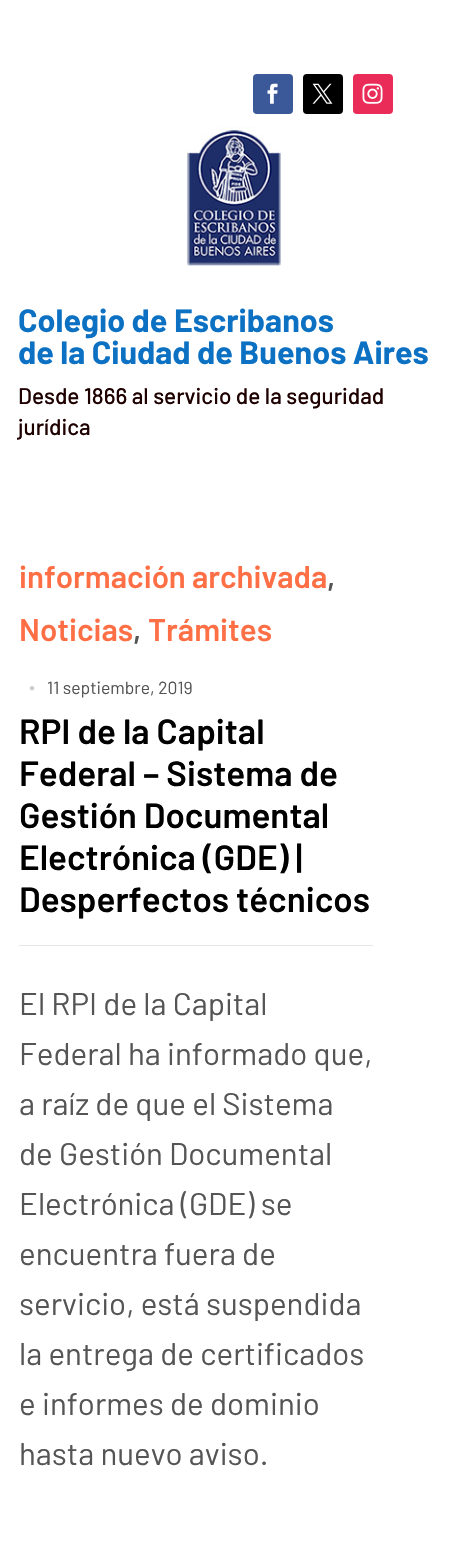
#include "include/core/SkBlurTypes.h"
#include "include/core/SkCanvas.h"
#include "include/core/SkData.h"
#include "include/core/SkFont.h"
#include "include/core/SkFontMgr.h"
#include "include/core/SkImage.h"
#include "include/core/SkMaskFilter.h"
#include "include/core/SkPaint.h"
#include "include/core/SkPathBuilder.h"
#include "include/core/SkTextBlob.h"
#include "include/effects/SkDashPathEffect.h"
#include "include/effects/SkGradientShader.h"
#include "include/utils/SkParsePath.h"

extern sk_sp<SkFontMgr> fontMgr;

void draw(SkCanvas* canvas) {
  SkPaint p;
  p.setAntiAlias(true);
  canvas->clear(SK_ColorWHITE);
  p.setColor(SkColorSetRGB(59, 89, 152));
  canvas->drawRoundRect(SkRect::MakeLTRB(253, 74, 293, 114), 4, 4, p);
  canvas->drawImageRect(SkImages::DeferredFromEncodedData(SkData::MakeFromFileName("images/1.png")), SkRect::MakeLTRB(267, 83, 278, 104), SkSamplingOptions());
  p.setColor(SK_ColorBLACK);
  canvas->drawRoundRect(SkRect::MakeLTRB(303, 74, 343, 114), 4, 4, p);
  canvas->drawImageRect(SkImages::DeferredFromEncodedData(SkData::MakeFromFileName("images/2.png")), SkRect::MakeLTRB(312, 83, 333, 104), SkSamplingOptions());
  p.setColor(SkColorSetRGB(234, 44, 89));
  canvas->drawRoundRect(SkRect::MakeLTRB(353, 74, 393, 114), 4, 4, p);
  canvas->drawImageRect(SkImages::DeferredFromEncodedData(SkData::MakeFromFileName("images/3.png")), SkRect::MakeLTRB(362, 83, 383, 104), SkSamplingOptions());
  canvas->drawImageRect(SkImages::DeferredFromEncodedData(SkData::MakeFromFileName("images/4.png")), SkRect::MakeLTRB(186, 126, 281, 266), SkSamplingOptions());
  p.setColor(SkColorSetRGB(230, 230, 230));
  canvas->drawRect(SkRect::MakeLTRB(19, 945, 373, 946), p);
  SkFont font1(fontMgr->matchFamilyStyle("Barlow", SkFontStyle::Bold()), 32.25f);
  font1.setSubpixel(true);
  p.setColor(SkColorSetRGB(12, 113, 195));
  canvas->drawString("Colegio de Escribanos", 18, 332, font1, p);
  canvas->drawString("de la Ciudad de Buenos Aires", 18, 364, font1, p);
  SkFont font2(fontMgr->matchFamilyStyle("Barlow", SkFontStyle(500, SkFontStyle::kNormal_Width, SkFontStyle::kUpright_Slant)), 22.5f);
  font2.setSubpixel(true);
  p.setColor(SkColorSetRGB(30, 0, 0));
  canvas->drawString("Desde 1866 al servicio de la seguridad", 18, 404, font2, p);
  canvas->drawString("jurídica", 18, 435, font2, p);
  SkFont font3(fontMgr->matchFamilyStyle("Barlow", SkFontStyle(600, SkFontStyle::kNormal_Width, SkFontStyle::kUpright_Slant)), 31.25f);
  font3.setSubpixel(true);
  p.setColor(SkColorSetRGB(254, 111, 69));
  canvas->drawString("información archivada", 19, 588, font3, p);
  p.setColor(SkColorSetRGB(85, 85, 85));
  canvas->drawString(",", 327, 588, font3, p);
  p.setColor(SkColorSetRGB(254, 111, 69));
  canvas->drawString("Noticias", 19, 641, font3, p);
  p.setColor(SkColorSetRGB(85, 85, 85));
  canvas->drawString(",", 133, 641, font3, p);
  p.setColor(SkColorSetRGB(254, 111, 69));
  canvas->drawString("Trámites", 148, 641, font3, p);
  SkFont font4(fontMgr->matchFamilyStyle("Liberation Serif", SkFontStyle::Normal()), 10);
  font4.setSubpixel(true);
  p.setColor(SkColorSetRGB(204, 204, 204));
  canvas->drawString("●", 29, 691, font4, p);
  SkFont font5(fontMgr->matchFamilyStyle("Barlow", SkFontStyle::Normal()), 17.5f);
  font5.setSubpixel(true);
  p.setColor(SkColorSetRGB(85, 85, 85));
  canvas->drawString("11 septiembre, 2019", 47, 694, font5, p);
  SkFont font6(fontMgr->matchFamilyStyle("Barlow", SkFontStyle(600, SkFontStyle::kNormal_Width, SkFontStyle::kUpright_Slant)), 35);
  font6.setSubpixel(true);
  p.setColor(SK_ColorBLACK);
  canvas->drawString("RPI de la Capital", 19, 744, font6, p);
  canvas->drawString("Federal – Sistema de", 19, 786, font6, p);
  canvas->drawString("Gestión Documental", 19, 828, font6, p);
  canvas->drawString("Electrónica (GDE) |", 19, 870, font6, p);
  canvas->drawString("Desperfectos técnicos", 19, 912, font6, p);
  SkFont font7(fontMgr->matchFamilyStyle("Barlow", SkFontStyle::Normal()), 31.25f);
  font7.setSubpixel(true);
  p.setColor(SkColorSetRGB(85, 85, 85));
  canvas->drawString("El RPI de la Capital", 19, 1015, font7, p);
  canvas->drawString("Federal ha informado que,", 19, 1065, font7, p);
  canvas->drawString("a raíz de que el Sistema", 19, 1115, font7, p);
  canvas->drawString("de Gestión Documental", 19, 1165, font7, p);
  canvas->drawString("Electrónica (GDE) se", 19, 1215, font7, p);
  canvas->drawString("encuentra fuera de", 19, 1265, font7, p);
  canvas->drawString("servicio, está suspendida", 19, 1315, font7, p);
  canvas->drawString("la entrega de certificados", 19, 1365, font7, p);
  canvas->drawString("e informes de dominio", 19, 1415, font7, p);
  canvas->drawString("hasta nuevo aviso.", 19, 1465, font7, p);
}
